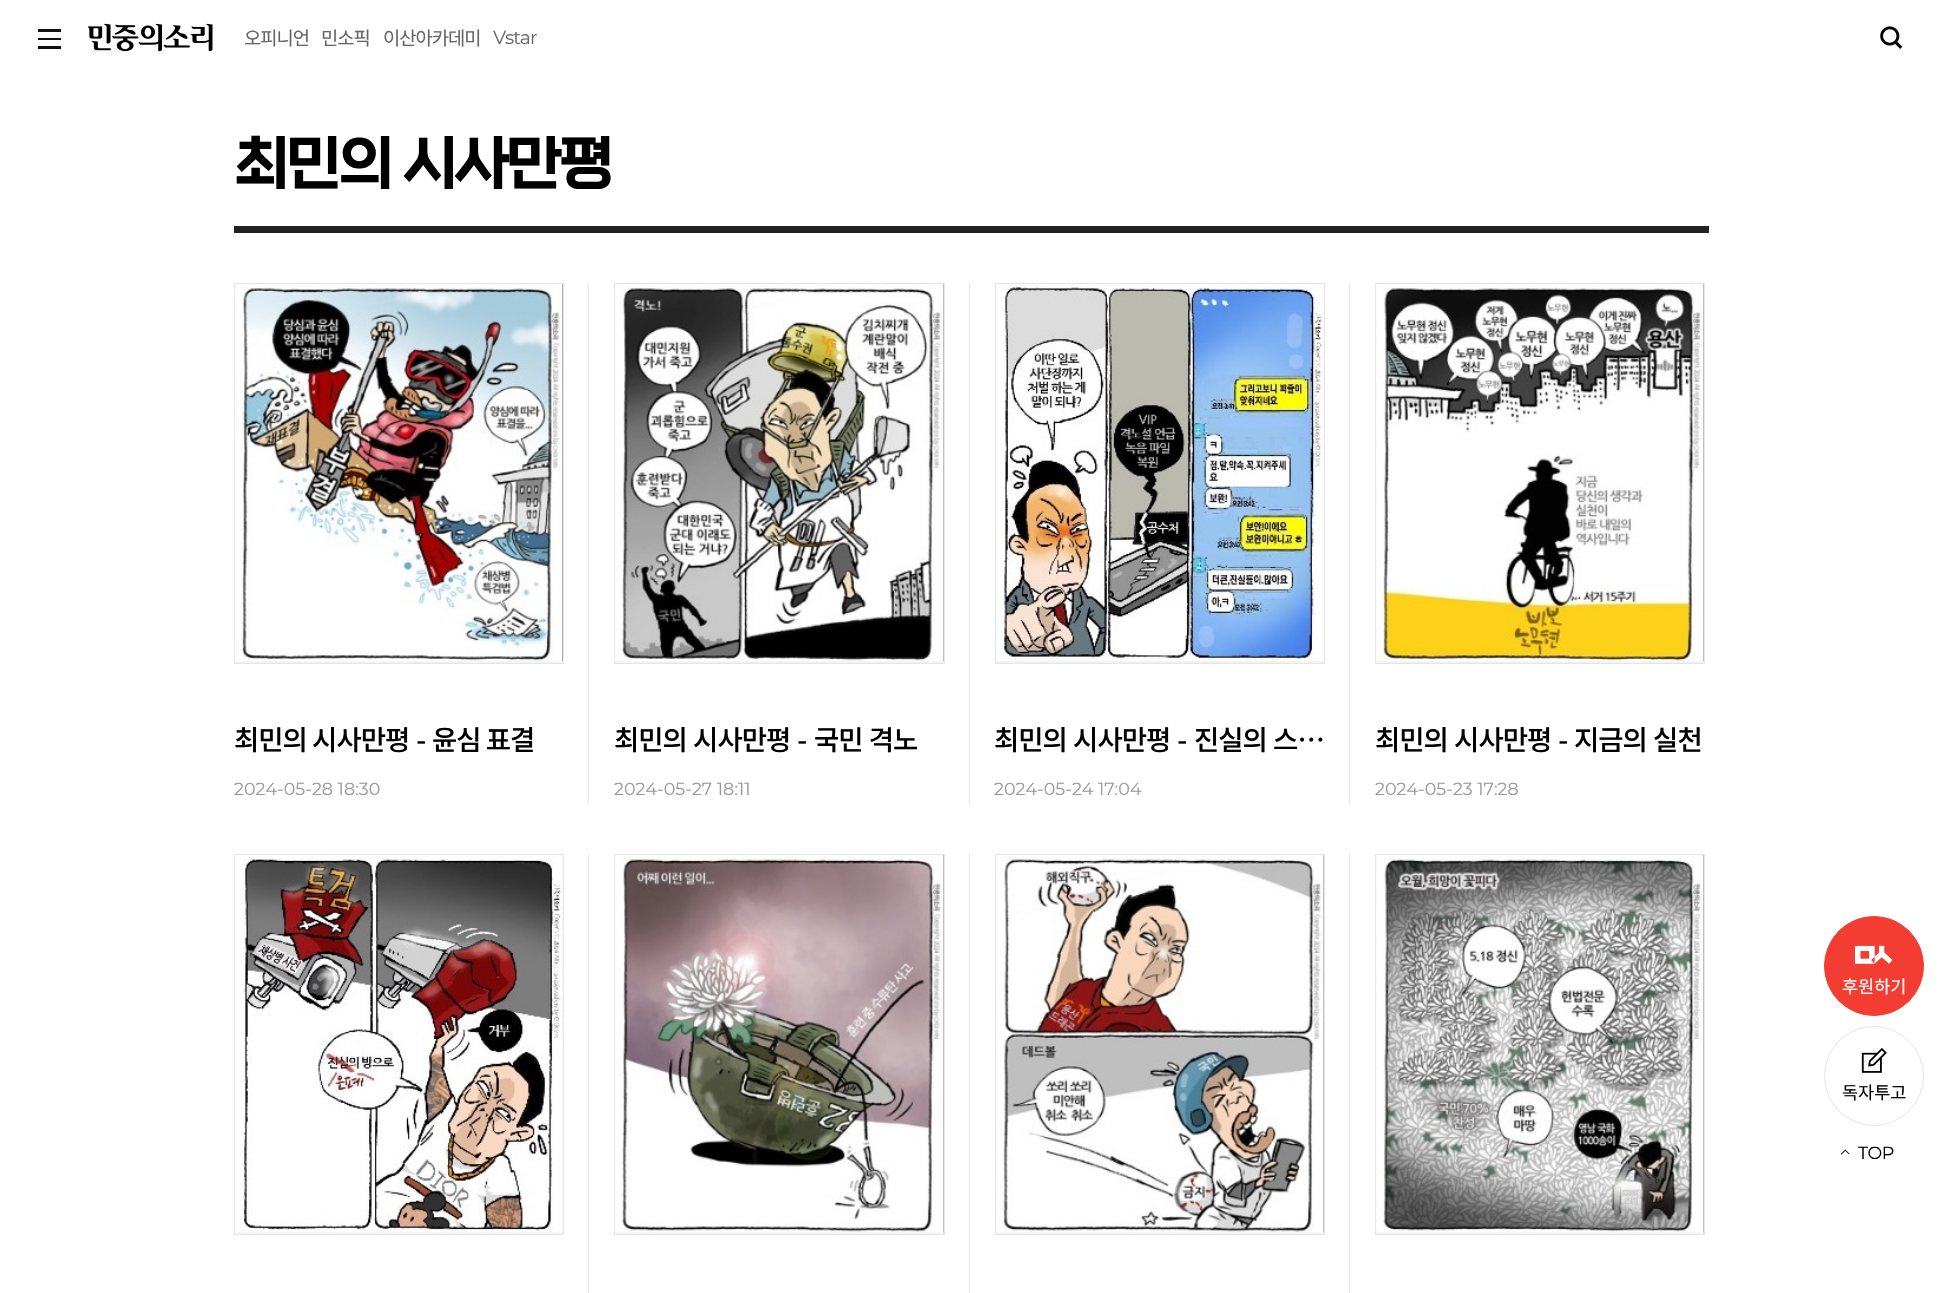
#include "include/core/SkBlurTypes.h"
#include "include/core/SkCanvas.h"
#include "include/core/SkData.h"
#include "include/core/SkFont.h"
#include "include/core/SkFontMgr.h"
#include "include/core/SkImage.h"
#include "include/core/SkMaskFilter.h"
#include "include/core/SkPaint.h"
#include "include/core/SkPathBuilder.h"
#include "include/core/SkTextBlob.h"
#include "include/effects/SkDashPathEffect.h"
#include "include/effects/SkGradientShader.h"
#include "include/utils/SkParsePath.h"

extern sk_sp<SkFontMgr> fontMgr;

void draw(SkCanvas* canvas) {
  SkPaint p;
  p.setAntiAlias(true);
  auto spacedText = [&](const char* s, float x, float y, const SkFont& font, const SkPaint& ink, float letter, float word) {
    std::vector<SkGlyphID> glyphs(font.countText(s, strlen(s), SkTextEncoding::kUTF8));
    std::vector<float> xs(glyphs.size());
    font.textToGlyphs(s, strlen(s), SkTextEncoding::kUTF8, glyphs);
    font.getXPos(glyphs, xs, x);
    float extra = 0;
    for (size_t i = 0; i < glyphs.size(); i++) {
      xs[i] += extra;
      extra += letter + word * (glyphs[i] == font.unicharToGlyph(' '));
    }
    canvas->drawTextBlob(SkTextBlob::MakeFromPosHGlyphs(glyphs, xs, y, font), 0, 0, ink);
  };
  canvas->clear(SK_ColorWHITE);
  p.setColor(SkColorSetRGB(16, 16, 16));
  canvas->drawRect(SkRect::MakeLTRB(38, 29, 61, 32), p);
  canvas->drawRect(SkRect::MakeLTRB(38, 38, 61, 40), p);
  canvas->drawRect(SkRect::MakeLTRB(38, 46, 61, 49), p);
  canvas->drawImageRect(SkImages::DeferredFromEncodedData(SkData::MakeFromFileName("images/1.png")), SkRect::MakeLTRB(88, 23, 213, 52), SkSamplingOptions());
  canvas->drawImageRect(SkImages::DeferredFromEncodedData(SkData::MakeFromFileName("images/2.png")), SkRect::MakeLTRB(1880, 26, 1903, 49), SkSamplingOptions());
  p.setColor(SkColorSetRGB(34, 34, 34));
  canvas->drawRect(SkRect::MakeLTRB(234, 226, 1709, 233), p);
  p.setStyle(SkPaint::kStroke_Style);
  p.setStrokeWidth(1);
  p.setColor(SkColorSetRGB(229, 229, 229));
  canvas->drawRect(SkRect::MakeLTRB(234.5f, 283.5f, 563.5f, 663.5f), p);
  p.setStyle(SkPaint::kFill_Style);
  p.setColor(SkColorSetRGB(242, 243, 245));
  canvas->drawRect(SkRect::MakeLTRB(235, 284, 563, 663), p);
  canvas->drawImageRect(SkImages::DeferredFromEncodedData(SkData::MakeFromFileName("images/3.png")), SkRect::MakeLTRB(235, 283, 563, 662), SkSamplingOptions());
  p.setColor(SkColorSetRGB(229, 229, 229));
  canvas->drawRect(SkRect::MakeLTRB(588, 283, 589, 804), p);
  p.setStyle(SkPaint::kStroke_Style);
  canvas->drawRect(SkRect::MakeLTRB(614.5f, 283.5f, 944.5f, 663.5f), p);
  p.setStyle(SkPaint::kFill_Style);
  p.setColor(SkColorSetRGB(242, 243, 245));
  canvas->drawRect(SkRect::MakeLTRB(615, 284, 944, 663), p);
  canvas->drawImageRect(SkImages::DeferredFromEncodedData(SkData::MakeFromFileName("images/4.png")), SkRect::MakeLTRB(615, 284, 944, 662), SkSamplingOptions());
  p.setColor(SkColorSetRGB(229, 229, 229));
  canvas->drawRect(SkRect::MakeLTRB(969, 283, 970, 804), p);
  p.setStyle(SkPaint::kStroke_Style);
  canvas->drawRect(SkRect::MakeLTRB(995.5f, 283.5f, 1324.5f, 663.5f), p);
  p.setStyle(SkPaint::kFill_Style);
  p.setColor(SkColorSetRGB(242, 243, 245));
  canvas->drawRect(SkRect::MakeLTRB(996, 284, 1324, 663), p);
  canvas->drawImageRect(SkImages::DeferredFromEncodedData(SkData::MakeFromFileName("images/5.png")), SkRect::MakeLTRB(996, 284, 1324, 661), SkSamplingOptions());
  p.setColor(SkColorSetRGB(229, 229, 229));
  canvas->drawRect(SkRect::MakeLTRB(1349, 283, 1350, 804), p);
  p.setStyle(SkPaint::kStroke_Style);
  canvas->drawRect(SkRect::MakeLTRB(1375.5f, 283.5f, 1704.5f, 663.5f), p);
  p.setStyle(SkPaint::kFill_Style);
  p.setColor(SkColorSetRGB(242, 243, 245));
  canvas->drawRect(SkRect::MakeLTRB(1376, 284, 1704, 663), p);
  canvas->drawImageRect(SkImages::DeferredFromEncodedData(SkData::MakeFromFileName("images/6.png")), SkRect::MakeLTRB(1376, 284, 1704, 662), SkSamplingOptions());
  p.setStyle(SkPaint::kStroke_Style);
  p.setColor(SkColorSetRGB(229, 229, 229));
  canvas->drawRect(SkRect::MakeLTRB(234.5f, 854.5f, 563.5f, 1234.5f), p);
  p.setStyle(SkPaint::kFill_Style);
  p.setColor(SkColorSetRGB(242, 243, 245));
  canvas->drawRect(SkRect::MakeLTRB(235, 855, 563, 1234), p);
  canvas->drawImageRect(SkImages::DeferredFromEncodedData(SkData::MakeFromFileName("images/7.png")), SkRect::MakeLTRB(235, 855, 563, 1233), SkSamplingOptions());
  p.setColor(SkColorSetRGB(229, 229, 229));
  canvas->drawRect(SkRect::MakeLTRB(588, 854, 589, 1293), p);
  p.setStyle(SkPaint::kStroke_Style);
  canvas->drawRect(SkRect::MakeLTRB(614.5f, 854.5f, 944.5f, 1234.5f), p);
  p.setStyle(SkPaint::kFill_Style);
  p.setColor(SkColorSetRGB(242, 243, 245));
  canvas->drawRect(SkRect::MakeLTRB(615, 855, 944, 1234), p);
  canvas->drawImageRect(SkImages::DeferredFromEncodedData(SkData::MakeFromFileName("images/8.png")), SkRect::MakeLTRB(615, 855, 944, 1233), SkSamplingOptions());
  p.setColor(SkColorSetRGB(229, 229, 229));
  canvas->drawRect(SkRect::MakeLTRB(969, 854, 970, 1293), p);
  p.setStyle(SkPaint::kStroke_Style);
  canvas->drawRect(SkRect::MakeLTRB(995.5f, 854.5f, 1324.5f, 1234.5f), p);
  p.setStyle(SkPaint::kFill_Style);
  p.setColor(SkColorSetRGB(242, 243, 245));
  canvas->drawRect(SkRect::MakeLTRB(996, 855, 1324, 1234), p);
  canvas->drawImageRect(SkImages::DeferredFromEncodedData(SkData::MakeFromFileName("images/9.png")), SkRect::MakeLTRB(996, 855, 1324, 1233), SkSamplingOptions());
  p.setColor(SkColorSetRGB(229, 229, 229));
  canvas->drawRect(SkRect::MakeLTRB(1349, 854, 1350, 1293), p);
  p.setStyle(SkPaint::kStroke_Style);
  canvas->drawRect(SkRect::MakeLTRB(1375.5f, 854.5f, 1704.5f, 1234.5f), p);
  p.setStyle(SkPaint::kFill_Style);
  p.setColor(SkColorSetRGB(242, 243, 245));
  canvas->drawRect(SkRect::MakeLTRB(1376, 855, 1704, 1234), p);
  canvas->drawImageRect(SkImages::DeferredFromEncodedData(SkData::MakeFromFileName("images/10.png")), SkRect::MakeLTRB(1376, 855, 1704, 1233), SkSamplingOptions());
  p.setColor(SkColorSetRGB(243, 61, 50));
  canvas->drawCircle(1874, 966, 49.5f, p);
  p.setStyle(SkPaint::kStroke_Style);
  canvas->drawCircle(1874, 966, 49.5f, p);
  canvas->drawImageRect(SkImages::DeferredFromEncodedData(SkData::MakeFromFileName("images/11.png")), SkRect::MakeLTRB(1855, 945, 1893, 964), SkSamplingOptions());
  p.setColor(SkColorSetRGB(229, 229, 229));
  canvas->drawCircle(1874, 1076, 49.5f, p);
  canvas->drawImageRect(SkImages::DeferredFromEncodedData(SkData::MakeFromFileName("images/12.png")), SkRect::MakeLTRB(1861, 1047, 1887, 1073), SkSamplingOptions());
  canvas->drawImageRect(SkImages::DeferredFromEncodedData(SkData::MakeFromFileName("images/13.png")), SkRect::MakeLTRB(1840, 1149, 1850, 1155), SkSamplingOptions());
  SkFont font1(fontMgr->matchFamilyStyle("Noto Sans KR", SkFontStyle::Normal()), 18.75f);
  font1.setSubpixel(true);
  p.setStyle(SkPaint::kFill_Style);
  p.setColor(SkColorSetRGB(102, 102, 102));
  spacedText("오피니언", 244, 45, font1, p, -1, 0);
  spacedText("민소픽", 321, 45, font1, p, -1, 0);
  spacedText("이산아카데미", 383, 45, font1, p, -1, 0);
  SkFont font2(fontMgr->matchFamilyStyle("Montserrat", SkFontStyle::Normal()), 18.75f);
  font2.setSubpixel(true);
  spacedText("Vstar", 493, 44, font2, p, -1, 0);
  SkFont font3(fontMgr->matchFamilyStyle("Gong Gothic", SkFontStyle(500, SkFontStyle::kNormal_Width, SkFontStyle::kUpright_Slant)), 60);
  font3.setSubpixel(true);
  p.setColor(SK_ColorBLACK);
  spacedText("최민의 시사만평", 234, 181, font3, p, -3, 0);
  SkFont font4(fontMgr->matchFamilyStyle("Noto Sans KR", SkFontStyle(500, SkFontStyle::kNormal_Width, SkFontStyle::kUpright_Slant)), 27.5f);
  font4.setSubpixel(true);
  spacedText("최민의 시사만평", 234, 750, font4, p, -1, 0);
  SkFont font5(fontMgr->matchFamilyStyle("Montserrat", SkFontStyle(500, SkFontStyle::kNormal_Width, SkFontStyle::kUpright_Slant)), 27.5f);
  font5.setSubpixel(true);
  spacedText("-", 416, 750, font5, p, -1, 0);
  spacedText("윤심 표결", 432, 750, font4, p, -1, 0);
  SkFont font6(fontMgr->matchFamilyStyle("Montserrat", SkFontStyle::Normal()), 17.5f);
  font6.setSubpixel(true);
  p.setColor(SkColorSetRGB(153, 153, 153));
  canvas->drawString("2024-05-28 18:30", 234, 795, font6, p);
  p.setColor(SK_ColorBLACK);
  spacedText("최민의 시사만평", 614, 750, font4, p, -1, 1);
  spacedText("-", 797, 750, font5, p, -1, 0);
  spacedText("국민 격노", 814, 750, font4, p, -1, 1);
  p.setColor(SkColorSetRGB(153, 153, 153));
  canvas->drawString("2024-05-27 18:11", 614, 795, font6, p);
  p.setColor(SK_ColorBLACK);
  spacedText("최민의 시사만평", 994, 750, font4, p, -1, 1);
  spacedText("-", 1177, 750, font5, p, -1, 0);
  spacedText("진실의 스…", 1194, 750, font4, p, -1, 1);
  p.setColor(SkColorSetRGB(153, 153, 153));
  canvas->drawString("2024-05-24 17:04", 994, 795, font6, p);
  p.setColor(SK_ColorBLACK);
  spacedText("최민의 시사만평", 1375, 750, font4, p, -1, 1);
  spacedText("-", 1558, 750, font5, p, -1, 0);
  spacedText("지금의 실천", 1574, 750, font4, p, -1, 1);
  p.setColor(SkColorSetRGB(153, 153, 153));
  canvas->drawString("2024-05-23 17:28", 1375, 795, font6, p);
  SkFont font7(fontMgr->matchFamilyStyle("Noto Sans KR", SkFontStyle::Normal()), 17.5f);
  font7.setSubpixel(true);
  p.setColor(SK_ColorWHITE);
  canvas->drawString("후원하기", 1842, 993, font7, p);
  p.setColor(SK_ColorBLACK);
  canvas->drawString("독자투고", 1842, 1099, font7, p);
  spacedText("TOP", 1858, 1159, font6, p, -0.5f, 0);
}
